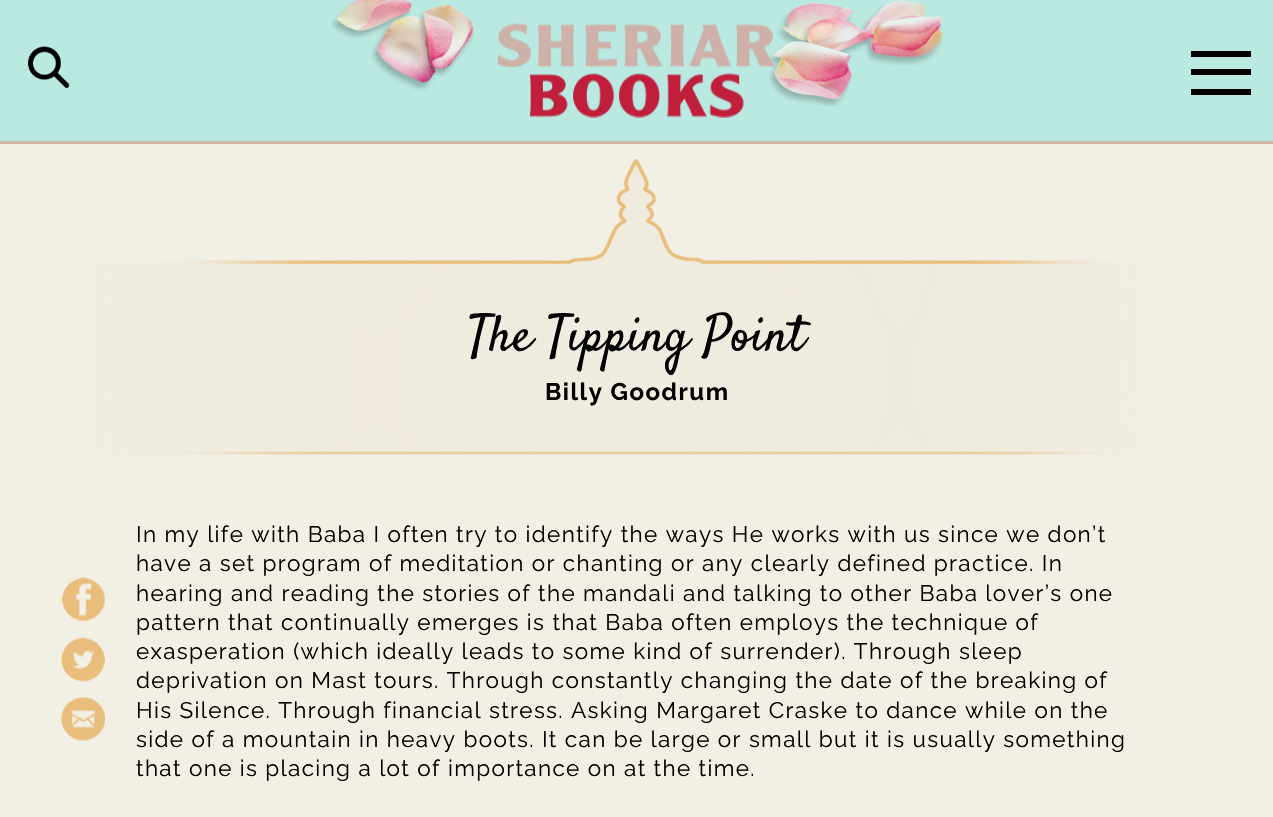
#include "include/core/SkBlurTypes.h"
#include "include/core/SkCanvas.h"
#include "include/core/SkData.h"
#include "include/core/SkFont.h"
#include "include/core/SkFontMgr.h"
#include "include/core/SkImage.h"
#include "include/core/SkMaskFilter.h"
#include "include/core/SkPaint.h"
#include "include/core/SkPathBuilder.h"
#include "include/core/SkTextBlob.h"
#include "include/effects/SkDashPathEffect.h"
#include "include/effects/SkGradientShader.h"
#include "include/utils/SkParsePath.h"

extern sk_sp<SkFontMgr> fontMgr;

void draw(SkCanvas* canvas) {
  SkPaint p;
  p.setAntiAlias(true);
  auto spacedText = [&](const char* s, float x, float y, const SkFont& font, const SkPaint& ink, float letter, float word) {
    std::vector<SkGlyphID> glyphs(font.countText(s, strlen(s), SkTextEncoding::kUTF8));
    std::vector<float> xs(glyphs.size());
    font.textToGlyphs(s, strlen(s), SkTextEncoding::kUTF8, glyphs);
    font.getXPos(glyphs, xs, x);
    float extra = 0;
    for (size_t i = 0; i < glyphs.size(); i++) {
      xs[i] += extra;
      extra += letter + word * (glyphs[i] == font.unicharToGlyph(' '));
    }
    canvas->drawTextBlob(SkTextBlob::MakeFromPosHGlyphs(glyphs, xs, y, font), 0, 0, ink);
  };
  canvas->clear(SkColorSetRGB(242, 239, 229));
  p.setColor(SkColorSetRGB(186, 233, 225));
  canvas->drawRect(SkRect::MakeLTRB(0, 0, 1273, 141), p);
  p.setColor(SkColorSetRGB(204, 186, 162));
  canvas->drawRect(SkRect::MakeLTRB(0, 141, 1273, 144), p);
  canvas->drawImageRect(SkImages::DeferredFromEncodedData(SkData::MakeFromFileName("images/1.png")), SkRect::MakeLTRB(28, 46, 70, 89), SkSamplingOptions());
  canvas->drawImageRect(SkImages::DeferredFromEncodedData(SkData::MakeFromFileName("images/2.png")), SkRect::MakeLTRB(331, 0, 412, 39), SkSamplingOptions());
  canvas->drawImageRect(SkImages::DeferredFromEncodedData(SkData::MakeFromFileName("images/6.png")), SkRect::MakeLTRB(371, 15, 437, 91), SkSamplingOptions());
  canvas->drawImageRect(SkImages::DeferredFromEncodedData(SkData::MakeFromFileName("images/3.png")), SkRect::MakeLTRB(418, 3, 474, 76), SkSamplingOptions());
  canvas->drawImageRect(SkImages::DeferredFromEncodedData(SkData::MakeFromFileName("images/4.png")), SkRect::MakeLTRB(777, 2, 853, 50), SkSamplingOptions());
  canvas->drawImageRect(SkImages::DeferredFromEncodedData(SkData::MakeFromFileName("images/5.png")), SkRect::MakeLTRB(858, 0, 944, 66), SkSamplingOptions());
  canvas->drawImageRect(SkImages::DeferredFromEncodedData(SkData::MakeFromFileName("images/8.png")), SkRect::MakeLTRB(769, 18, 871, 106), SkSamplingOptions());
  canvas->drawImageRect(SkImages::DeferredFromEncodedData(SkData::MakeFromFileName("images/7.png")), SkRect::MakeLTRB(498, 23, 775, 118), SkSamplingOptions());
  p.setColor(SK_ColorBLACK);
  canvas->drawRect(SkRect::MakeLTRB(1191, 51, 1251, 57), p);
  canvas->drawRect(SkRect::MakeLTRB(1191, 69, 1251, 75), p);
  canvas->drawRect(SkRect::MakeLTRB(1191, 89, 1251, 95), p);
  canvas->drawImageRect(SkImages::DeferredFromEncodedData(SkData::MakeFromFileName("images/9.png")), SkRect::MakeLTRB(156, 159, 1111, 264), SkSamplingOptions());
  canvas->drawImageRect(SkImages::DeferredFromEncodedData(SkData::MakeFromFileName("images/10.png")), SkRect::MakeLTRB(94, 264, 1137, 455), SkSamplingOptions());
  canvas->drawImageRect(SkImages::DeferredFromEncodedData(SkData::MakeFromFileName("images/11.png")), SkRect::MakeLTRB(186, 451, 1102, 455), SkSamplingOptions());
  canvas->drawImageRect(SkImages::DeferredFromEncodedData(SkData::MakeFromFileName("images/12.png")), SkRect::MakeLTRB(61, 577, 105, 622), SkSamplingOptions());
  canvas->drawImageRect(SkImages::DeferredFromEncodedData(SkData::MakeFromFileName("images/13.png")), SkRect::MakeLTRB(61, 637, 105, 682), SkSamplingOptions());
  canvas->drawImageRect(SkImages::DeferredFromEncodedData(SkData::MakeFromFileName("images/14.png")), SkRect::MakeLTRB(61, 697, 105, 741), SkSamplingOptions());
  SkFont font1(fontMgr->matchFamilyStyle("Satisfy", SkFontStyle::Normal()), 51);
  font1.setSubpixel(true);
  canvas->drawString("The Tipping Point", 468, 350, font1, p);
  SkFont font2(fontMgr->matchFamilyStyle("Raleway", SkFontStyle::Bold()), 24);
  font2.setSubpixel(true);
  spacedText("Billy Goodrum", 545, 400, font2, p, 1.5f, 0);
  SkFont font3(fontMgr->matchFamilyStyle("Raleway", SkFontStyle::Normal()), 22.5f);
  font3.setSubpixel(true);
  spacedText("In my life with Baba I often try to identify the ways He works with us since we don’t", 136, 542, font3, p, 1.35f, 0);
  spacedText("have a set program of meditation or chanting or any clearly defined practice. In", 136, 571, font3, p, 1.35f, 0);
  spacedText("hearing and reading the stories of the mandali and talking to other Baba lover’s one", 136, 601, font3, p, 1.35f, 0);
  spacedText("pattern that continually emerges is that Baba often employs the technique of", 136, 630, font3, p, 1.35f, 0);
  spacedText("exasperation (which ideally leads to some kind of surrender). Through sleep", 136, 659, font3, p, 1.35f, 0);
  spacedText("deprivation on Mast tours. Through constantly changing the date of the breaking of", 136, 688, font3, p, 1.35f, 0);
  spacedText("His Silence. Through financial stress. Asking Margaret Craske to dance while on the", 136, 718, font3, p, 1.35f, 0);
  spacedText("side of a mountain in heavy boots. It can be large or small but it is usually something", 136, 747, font3, p, 1.35f, 0);
  spacedText("that one is placing a lot of importance on at the time.", 136, 776, font3, p, 1.35f, 0);
}
